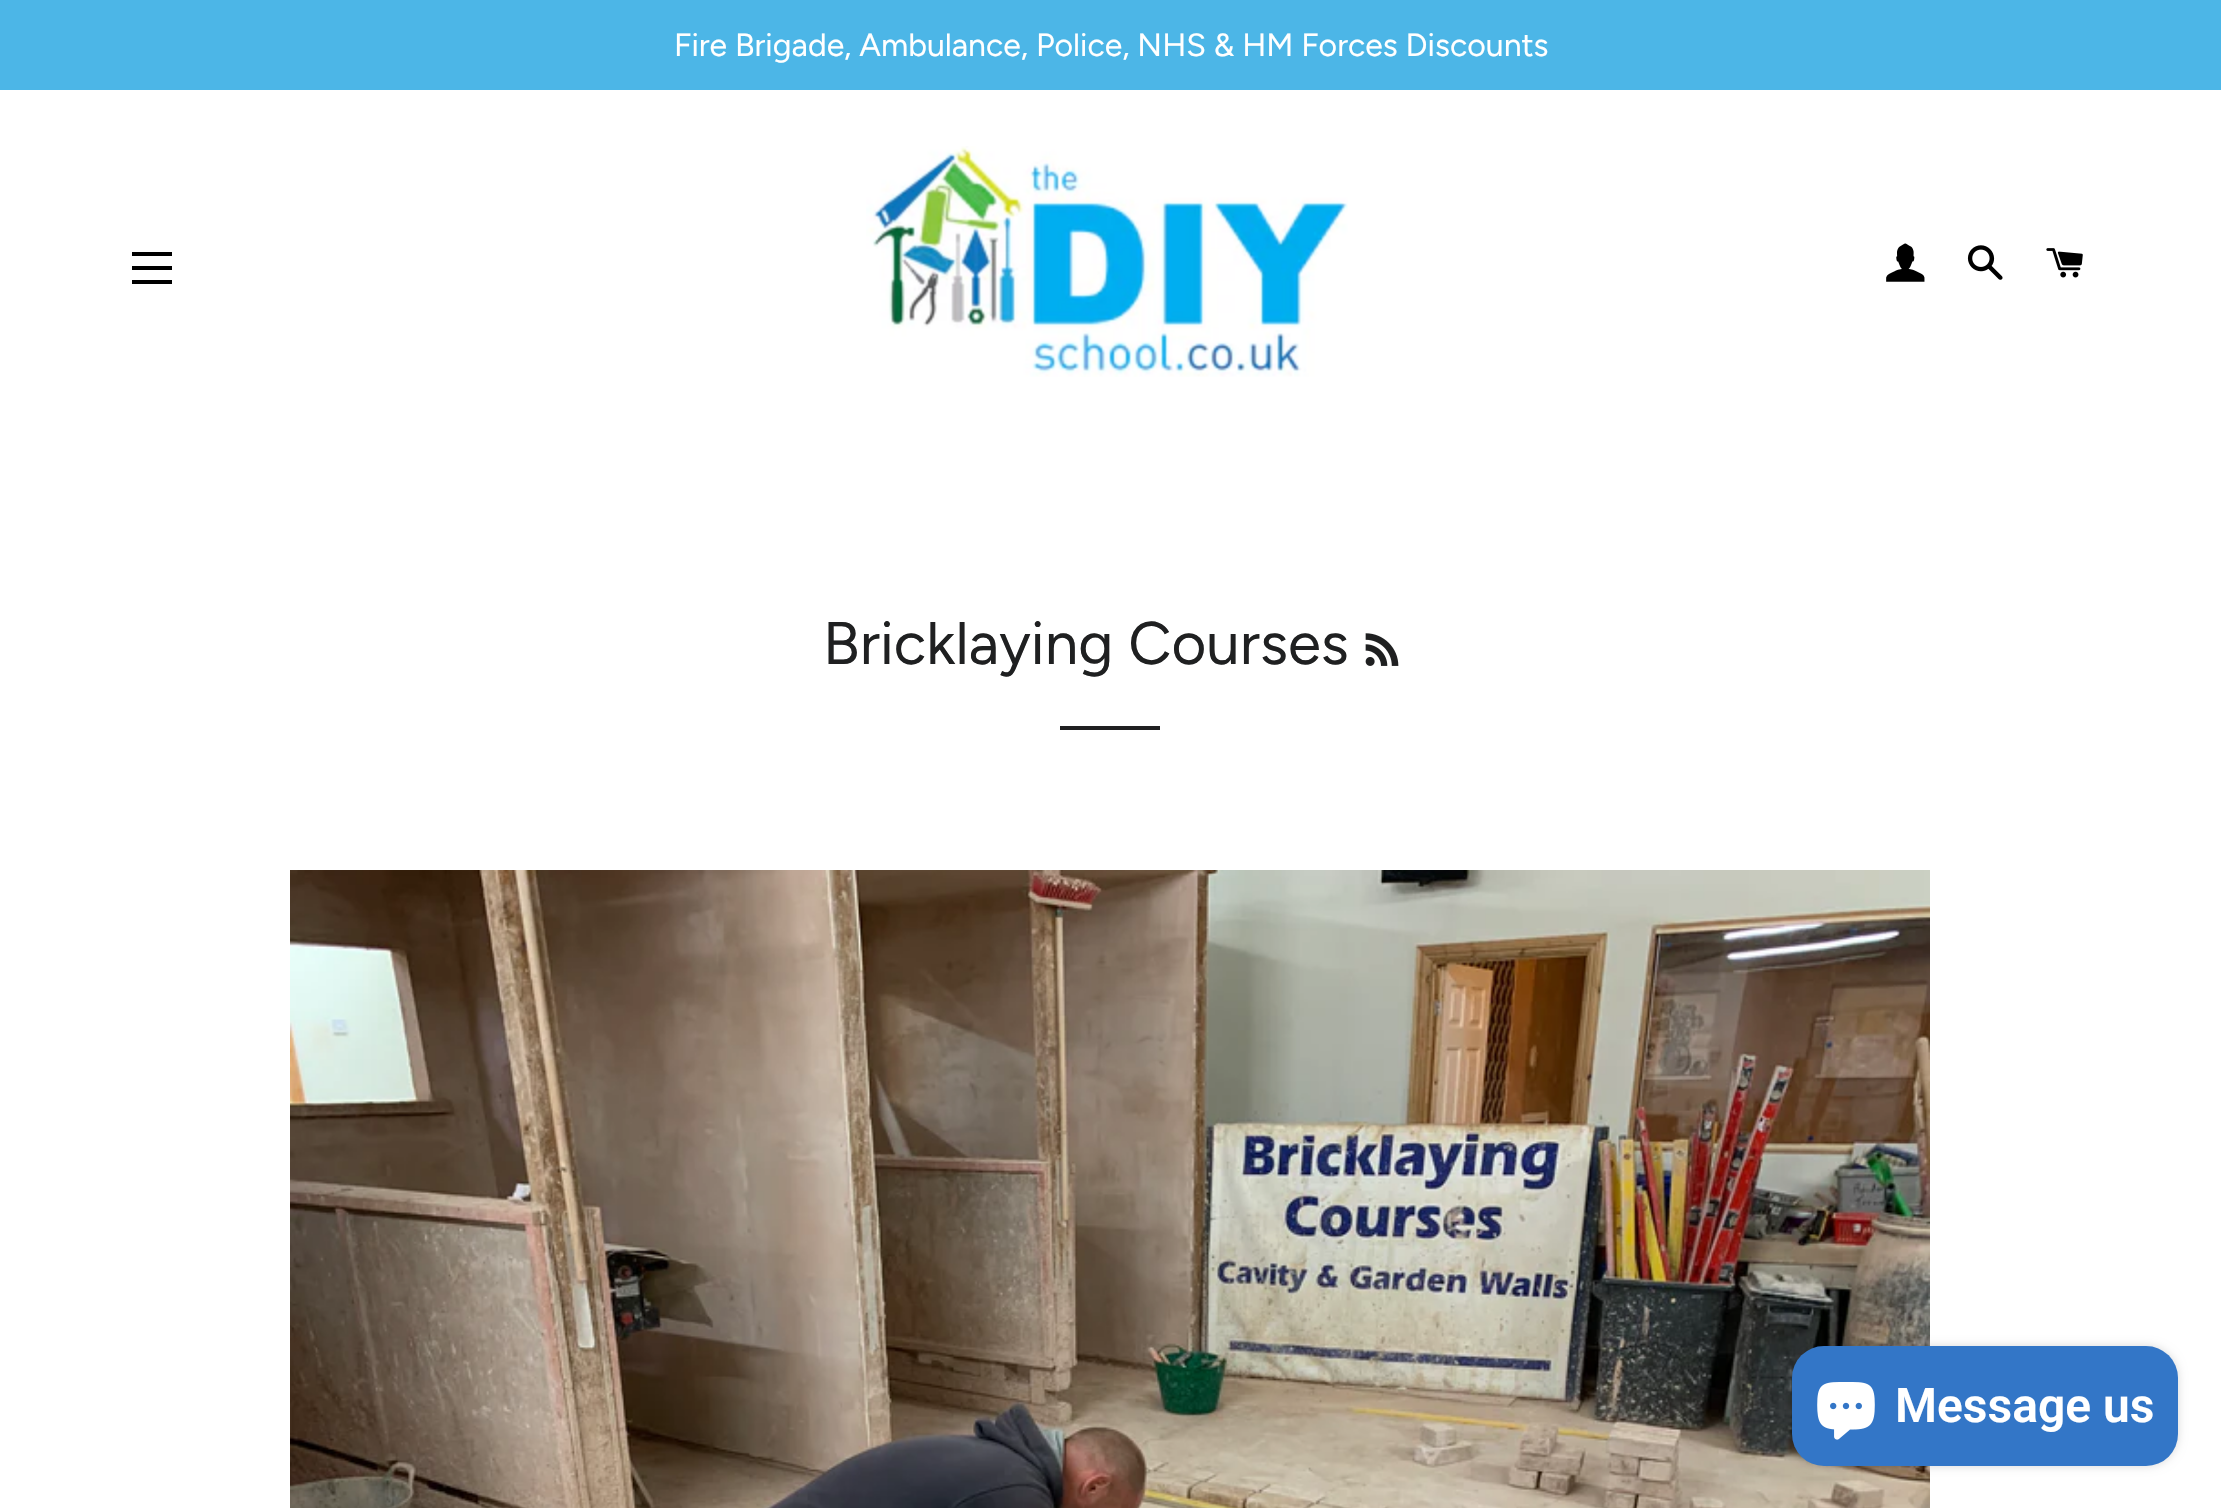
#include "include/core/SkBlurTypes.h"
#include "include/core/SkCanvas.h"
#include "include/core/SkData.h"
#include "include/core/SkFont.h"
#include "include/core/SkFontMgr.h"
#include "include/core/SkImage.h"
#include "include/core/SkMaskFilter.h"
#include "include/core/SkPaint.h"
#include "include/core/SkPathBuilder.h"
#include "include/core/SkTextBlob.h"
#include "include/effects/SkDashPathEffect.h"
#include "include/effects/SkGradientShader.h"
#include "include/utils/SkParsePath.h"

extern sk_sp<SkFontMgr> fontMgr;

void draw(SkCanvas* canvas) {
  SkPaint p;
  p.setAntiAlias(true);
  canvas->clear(SK_ColorWHITE);
  p.setColor(SkColorSetRGB(76, 182, 231));
  canvas->drawRect(SkRect::MakeLTRB(0, 0, 2221, 90), p);
  p.setColor(SK_ColorBLACK);
  canvas->drawRect(SkRect::MakeLTRB(132, 252, 172, 256), p);
  canvas->drawRect(SkRect::MakeLTRB(132, 266, 172, 270), p);
  canvas->drawRect(SkRect::MakeLTRB(132, 280, 172, 284), p);
  canvas->drawImageRect(SkImages::DeferredFromEncodedData(SkData::MakeFromFileName("images/1.png")), SkRect::MakeLTRB(866, 146, 1348, 377), SkSamplingOptions());
  canvas->drawImageRect(SkImages::DeferredFromEncodedData(SkData::MakeFromFileName("images/2.png")), SkRect::MakeLTRB(1886, 243, 1925, 282), SkSamplingOptions());
  canvas->drawImageRect(SkImages::DeferredFromEncodedData(SkData::MakeFromFileName("images/3.png")), SkRect::MakeLTRB(1967, 245, 2003, 280), SkSamplingOptions());
  canvas->drawImageRect(SkImages::DeferredFromEncodedData(SkData::MakeFromFileName("images/4.png")), SkRect::MakeLTRB(2046, 248, 2083, 278), SkSamplingOptions());
  canvas->drawImageRect(SkImages::DeferredFromEncodedData(SkData::MakeFromFileName("images/5.png")), SkRect::MakeLTRB(1365, 633, 1399, 666), SkSamplingOptions());
  p.setColor(SkColorSetRGB(31, 32, 33));
  canvas->drawRect(SkRect::MakeLTRB(1060, 726, 1160, 730), p);
  canvas->drawImageRect(SkImages::DeferredFromEncodedData(SkData::MakeFromFileName("images/6.png")), SkRect::MakeLTRB(290, 870, 1930, 1508), SkSamplingOptions());
  p.setColor(SkColorSetARGB(38, 0, 0, 0));
  p.setMaskFilter(SkMaskFilter::MakeBlur(kNormal_SkBlurStyle, 5));
  canvas->drawRoundRect(SkRect::MakeLTRB(1792, 1346, 2178, 1466), 32, 32, p);
  p.setMaskFilter(nullptr);
  p.setColor(SkColorSetRGB(51, 118, 199));
  canvas->drawRoundRect(SkRect::MakeLTRB(1792, 1346, 2178, 1466), 32, 32, p);
  canvas->drawImageRect(SkImages::DeferredFromEncodedData(SkData::MakeFromFileName("images/7.png")), SkRect::MakeLTRB(1817, 1382, 1875, 1440), SkSamplingOptions());
  SkFont font1(fontMgr->matchFamilyStyle("Figtree", SkFontStyle::Normal()), 32);
  font1.setSubpixel(true);
  p.setColor(SK_ColorWHITE);
  canvas->drawString("Fire Brigade, Ambulance, Police, NHS & HM Forces Discounts", 674, 56, font1, p);
  SkFont font2(fontMgr->matchFamilyStyle("Figtree", SkFontStyle::Normal()), 60);
  font2.setSubpixel(true);
  p.setColor(SkColorSetRGB(31, 32, 33));
  canvas->drawString("Bricklaying Courses", 823, 664, font2, p);
  SkFont font3(fontMgr->matchFamilyStyle("Roboto", SkFontStyle(600, SkFontStyle::kNormal_Width, SkFontStyle::kUpright_Slant)), 48);
  font3.setSubpixel(true);
  p.setColor(SK_ColorWHITE);
  canvas->drawString("Message us", 1895, 1422, font3, p);
}
